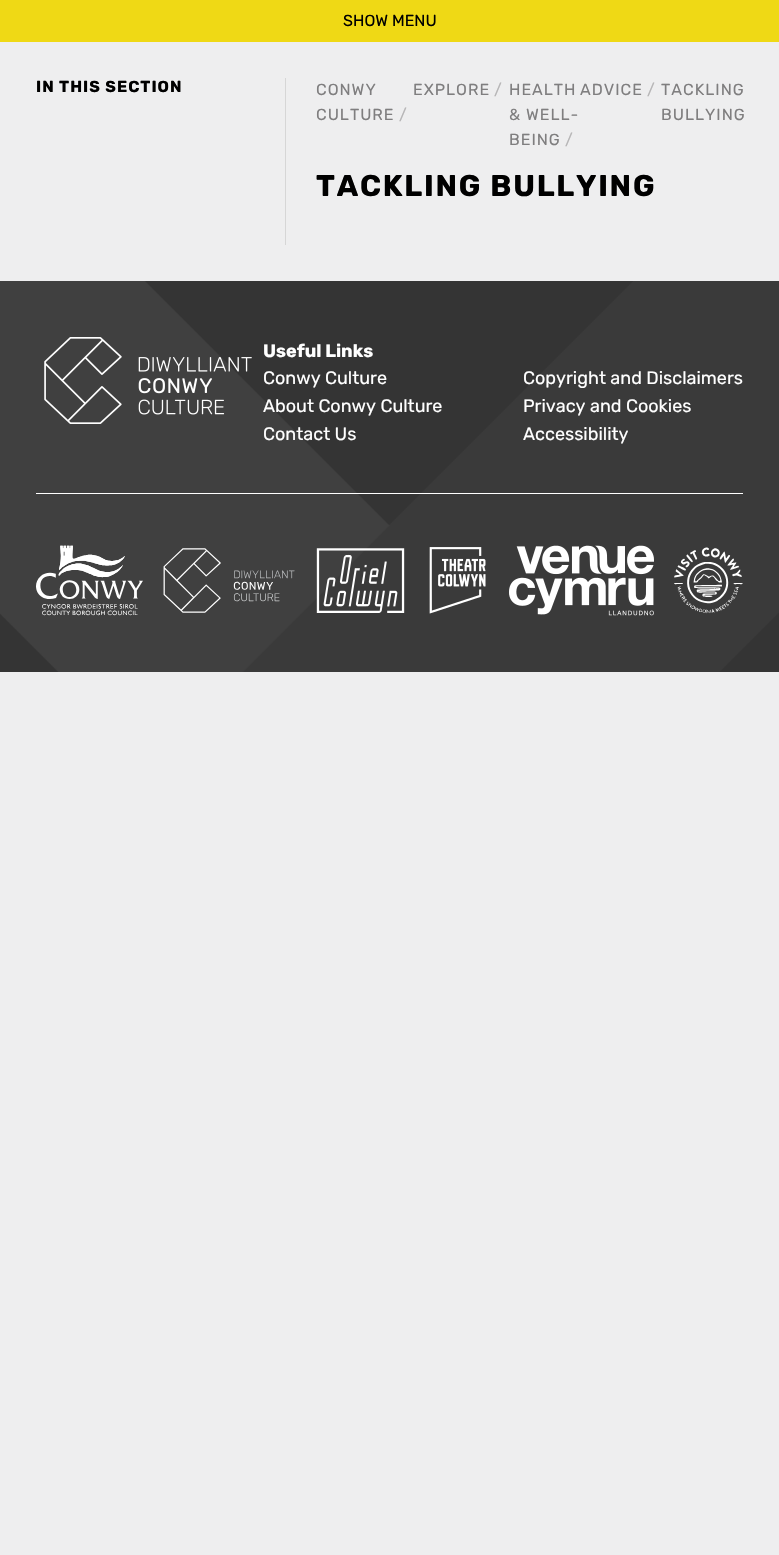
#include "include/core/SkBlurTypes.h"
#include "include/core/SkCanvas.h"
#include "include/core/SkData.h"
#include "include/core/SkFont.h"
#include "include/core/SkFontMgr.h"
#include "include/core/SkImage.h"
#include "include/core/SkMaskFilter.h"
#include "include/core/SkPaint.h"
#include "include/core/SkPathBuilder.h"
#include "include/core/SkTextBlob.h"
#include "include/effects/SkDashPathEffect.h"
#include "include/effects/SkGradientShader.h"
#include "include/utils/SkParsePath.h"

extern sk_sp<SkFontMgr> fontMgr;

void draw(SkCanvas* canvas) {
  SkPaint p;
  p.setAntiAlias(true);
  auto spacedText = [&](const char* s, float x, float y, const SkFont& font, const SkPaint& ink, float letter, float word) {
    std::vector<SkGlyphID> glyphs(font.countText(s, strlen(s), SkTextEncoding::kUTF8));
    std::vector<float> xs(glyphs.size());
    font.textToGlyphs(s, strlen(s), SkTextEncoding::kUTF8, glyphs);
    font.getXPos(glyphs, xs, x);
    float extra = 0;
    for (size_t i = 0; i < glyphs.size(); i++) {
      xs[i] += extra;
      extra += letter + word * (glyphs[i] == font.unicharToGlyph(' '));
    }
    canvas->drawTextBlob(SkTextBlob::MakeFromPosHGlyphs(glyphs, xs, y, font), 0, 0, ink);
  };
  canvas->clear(SkColorSetRGB(238, 238, 239));
  p.setColor(SkColorSetRGB(239, 217, 21));
  canvas->drawRect(SkRect::MakeLTRB(0, 0, 779, 42), p);
  p.setColor(SkColorSetRGB(214, 214, 214));
  canvas->drawRect(SkRect::MakeLTRB(285, 78, 286, 245), p);
  canvas->drawImageRect(SkImages::DeferredFromEncodedData(SkData::MakeFromFileName("images/1.png")), SkRect::MakeLTRB(0, 281, 779, 672), SkSamplingOptions());
  canvas->drawImageRect(SkImages::DeferredFromEncodedData(SkData::MakeFromFileName("images/2.png")), SkRect::MakeLTRB(44, 337, 252, 424), SkSamplingOptions());
  p.setColor(SK_ColorWHITE);
  canvas->drawRect(SkRect::MakeLTRB(36, 493, 743, 494), p);
  canvas->drawImageRect(SkImages::DeferredFromEncodedData(SkData::MakeFromFileName("images/3.png")), SkRect::MakeLTRB(36, 545, 143, 616), SkSamplingOptions());
  canvas->drawImageRect(SkImages::DeferredFromEncodedData(SkData::MakeFromFileName("images/4.png")), SkRect::MakeLTRB(163, 548, 295, 613), SkSamplingOptions());
  canvas->drawImageRect(SkImages::DeferredFromEncodedData(SkData::MakeFromFileName("images/5.png")), SkRect::MakeLTRB(316, 548, 405, 613), SkSamplingOptions());
  canvas->drawImageRect(SkImages::DeferredFromEncodedData(SkData::MakeFromFileName("images/6.png")), SkRect::MakeLTRB(429, 547, 486, 614), SkSamplingOptions());
  canvas->drawImageRect(SkImages::DeferredFromEncodedData(SkData::MakeFromFileName("images/7.png")), SkRect::MakeLTRB(509, 545, 654, 616), SkSamplingOptions());
  canvas->drawImageRect(SkImages::DeferredFromEncodedData(SkData::MakeFromFileName("images/8.png")), SkRect::MakeLTRB(674, 547, 743, 614), SkSamplingOptions());
  SkFont font1(fontMgr->matchFamilyStyle("Rubik", SkFontStyle::Normal()), 16);
  font1.setSubpixel(true);
  p.setColor(SK_ColorBLACK);
  canvas->drawString("SHOW MENU", 343, 26, font1, p);
  SkFont font2(fontMgr->matchFamilyStyle("Rubik", SkFontStyle::Bold()), 16);
  font2.setSubpixel(true);
  spacedText("IN THIS SECTION", 36, 92, font2, p, 1, 0);
  p.setColor(SkColorSetRGB(127, 126, 127));
  spacedText("CONWY", 316, 95, font1, p, 1, 0);
  spacedText("CULTURE", 316, 120, font1, p, 1, 0);
  p.setColor(SkColorSetRGB(183, 182, 183));
  spacedText("/", 399, 120, font1, p, 1, 0);
  p.setColor(SkColorSetRGB(127, 126, 127));
  spacedText("EXPLORE", 413, 95, font1, p, 1, 0);
  p.setColor(SkColorSetRGB(183, 182, 183));
  spacedText("/", 494, 95, font1, p, 1, 0);
  p.setColor(SkColorSetRGB(127, 126, 127));
  spacedText("HEALTH", 509, 95, font1, p, 1, 0);
  spacedText("& WELL-", 509, 120, font1, p, 1, 0);
  spacedText("BEING", 509, 145, font1, p, 1, 0);
  p.setColor(SkColorSetRGB(183, 182, 183));
  spacedText("/", 565, 145, font1, p, 1, 0);
  p.setColor(SkColorSetRGB(127, 126, 127));
  spacedText("ADVICE", 580, 95, font1, p, 1, 0);
  p.setColor(SkColorSetRGB(183, 182, 183));
  spacedText("/", 647, 95, font1, p, 1, 0);
  p.setColor(SkColorSetRGB(127, 126, 127));
  spacedText("TACKLING", 661, 95, font1, p, 1, 0);
  spacedText("BULLYING", 661, 120, font1, p, 1, 0);
  SkFont font3(fontMgr->matchFamilyStyle("Rubik", SkFontStyle::Bold()), 30);
  font3.setSubpixel(true);
  p.setColor(SK_ColorBLACK);
  spacedText("TACKLING BULLYING", 316, 196, font3, p, 1.75f, 0);
  SkFont font4(fontMgr->matchFamilyStyle("Rubik", SkFontStyle::Bold()), 18);
  font4.setSubpixel(true);
  p.setColor(SK_ColorWHITE);
  canvas->drawString("Useful Links", 263, 357, font4, p);
  SkFont font5(fontMgr->matchFamilyStyle("Rubik", SkFontStyle::Normal()), 18);
  font5.setSubpixel(true);
  canvas->drawString("Conwy Culture", 263, 384, font5, p);
  canvas->drawString("Copyright and Disclaimers", 523, 384, font5, p);
  canvas->drawString("About Conwy Culture", 263, 412, font5, p);
  canvas->drawString("Privacy and Cookies", 523, 412, font5, p);
  canvas->drawString("Contact Us", 263, 440, font5, p);
  canvas->drawString("Accessibility", 523, 440, font5, p);
}
